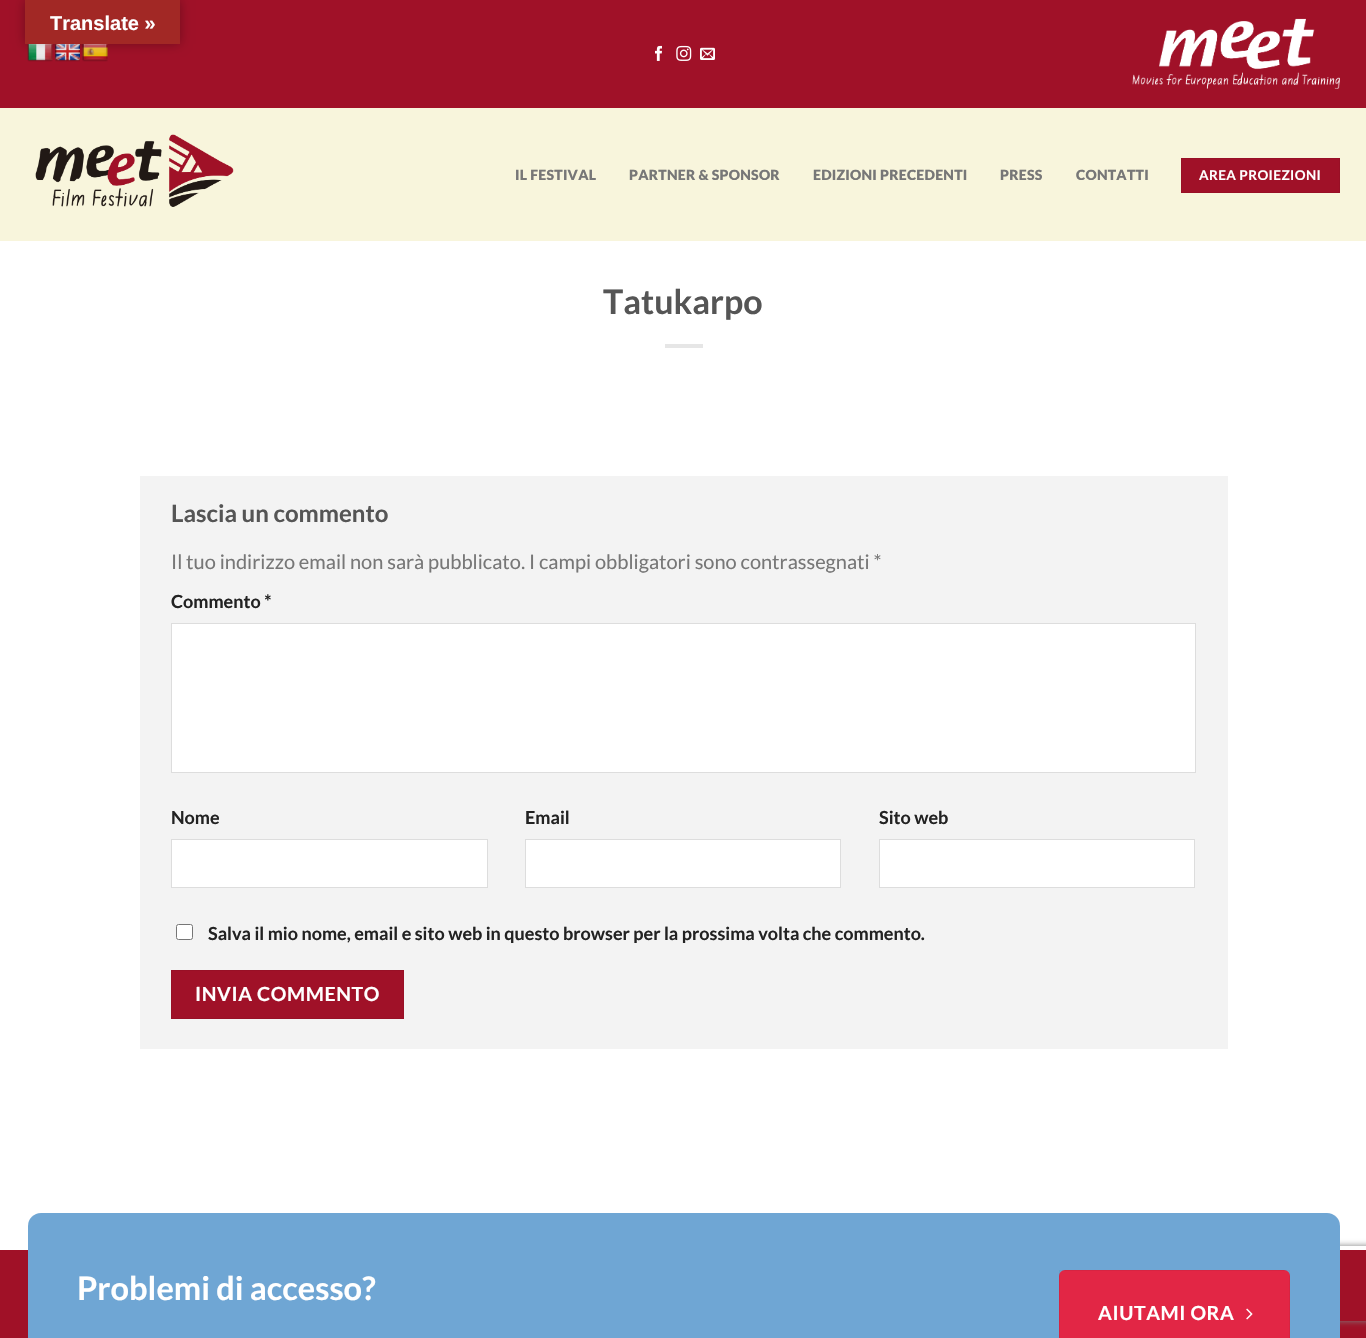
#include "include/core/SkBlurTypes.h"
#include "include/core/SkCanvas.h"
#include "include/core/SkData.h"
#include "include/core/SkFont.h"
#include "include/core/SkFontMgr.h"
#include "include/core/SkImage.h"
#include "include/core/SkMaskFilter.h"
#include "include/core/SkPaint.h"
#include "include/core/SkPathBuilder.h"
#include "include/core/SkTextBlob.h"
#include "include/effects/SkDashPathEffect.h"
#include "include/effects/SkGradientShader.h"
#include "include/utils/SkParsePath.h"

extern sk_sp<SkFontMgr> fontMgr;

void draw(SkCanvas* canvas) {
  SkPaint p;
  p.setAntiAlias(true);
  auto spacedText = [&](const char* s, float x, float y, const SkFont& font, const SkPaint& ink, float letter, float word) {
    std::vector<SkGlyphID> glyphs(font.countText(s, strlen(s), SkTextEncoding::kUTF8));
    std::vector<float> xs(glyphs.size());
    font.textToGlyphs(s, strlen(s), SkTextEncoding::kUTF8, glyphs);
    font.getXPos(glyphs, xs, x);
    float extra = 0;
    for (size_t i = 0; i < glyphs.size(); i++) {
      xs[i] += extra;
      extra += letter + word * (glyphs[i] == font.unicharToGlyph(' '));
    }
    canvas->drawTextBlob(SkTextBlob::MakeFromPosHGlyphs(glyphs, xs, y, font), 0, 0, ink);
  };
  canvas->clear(SK_ColorWHITE);
  p.setColor(SkColorSetRGB(160, 17, 40));
  canvas->drawRect(SkRect::MakeLTRB(0, 0, 1366, 108), p);
  canvas->drawImageRect(SkImages::DeferredFromEncodedData(SkData::MakeFromFileName("images/1.png")), SkRect::MakeLTRB(27, 44, 53, 62), SkSamplingOptions());
  canvas->drawImageRect(SkImages::DeferredFromEncodedData(SkData::MakeFromFileName("images/2.png")), SkRect::MakeLTRB(55, 44, 80, 62), SkSamplingOptions());
  canvas->drawImageRect(SkImages::DeferredFromEncodedData(SkData::MakeFromFileName("images/3.png")), SkRect::MakeLTRB(82, 44, 108, 62), SkSamplingOptions());
  p.setColor(SkColorSetARGB(77, 0, 0, 0));
  p.setMaskFilter(SkMaskFilter::MakeBlur(kNormal_SkBlurStyle, 5.5f));
  canvas->drawRect(SkRect::MakeLTRB(25, 0, 180, 44), p);
  p.setMaskFilter(nullptr);
  p.setColor(SkColorSetRGB(162, 40, 37));
  canvas->drawRect(SkRect::MakeLTRB(25, 0, 180, 44), p);
  canvas->drawImageRect(SkImages::DeferredFromEncodedData(SkData::MakeFromFileName("images/4.png")), SkRect::MakeLTRB(655, 45, 662, 61), SkSamplingOptions());
  canvas->drawImageRect(SkImages::DeferredFromEncodedData(SkData::MakeFromFileName("images/5.png")), SkRect::MakeLTRB(676, 45, 692, 61), SkSamplingOptions());
  canvas->drawImageRect(SkImages::DeferredFromEncodedData(SkData::MakeFromFileName("images/6.png")), SkRect::MakeLTRB(700, 47, 715, 60), SkSamplingOptions());
  canvas->drawImageRect(SkImages::DeferredFromEncodedData(SkData::MakeFromFileName("images/7.png")), SkRect::MakeLTRB(1132, 18, 1340, 89), SkSamplingOptions());
  p.setColor(SkColorSetRGB(248, 245, 220));
  canvas->drawRect(SkRect::MakeLTRB(0, 108, 1366, 241), p);
  canvas->drawImageRect(SkImages::DeferredFromEncodedData(SkData::MakeFromFileName("images/8.png")), SkRect::MakeLTRB(35, 134, 234, 207), SkSamplingOptions());
  p.setColor(SkColorSetRGB(160, 17, 40));
  canvas->drawRect(SkRect::MakeLTRB(1181.5f, 158.5f, 1339.5f, 192.5f), p);
  p.setStyle(SkPaint::kStroke_Style);
  p.setStrokeWidth(1);
  p.setColor(SkColorSetRGB(152, 16, 38));
  canvas->drawRect(SkRect::MakeLTRB(1181.5f, 158.5f, 1339.5f, 192.5f), p);
  p.setStyle(SkPaint::kFill_Style);
  p.setColor(SkColorSetRGB(230, 230, 230));
  canvas->drawRect(SkRect::MakeLTRB(665, 344, 703, 348), p);
  p.setColor(SkColorSetRGB(243, 243, 243));
  canvas->drawRect(SkRect::MakeLTRB(140, 476, 1228, 1049), p);
  p.setColor(SK_ColorWHITE);
  canvas->drawRect(SkRect::MakeLTRB(171.5f, 623.5f, 1195.5f, 772.5f), p);
  p.setStyle(SkPaint::kStroke_Style);
  p.setColor(SkColorSetRGB(221, 221, 221));
  canvas->drawRect(SkRect::MakeLTRB(171.5f, 623.5f, 1195.5f, 772.5f), p);
  p.setStyle(SkPaint::kFill_Style);
  p.setColor(SK_ColorWHITE);
  canvas->drawRect(SkRect::MakeLTRB(171.5f, 839.5f, 487.5f, 887.5f), p);
  p.setStyle(SkPaint::kStroke_Style);
  p.setColor(SkColorSetRGB(221, 221, 221));
  canvas->drawRect(SkRect::MakeLTRB(171.5f, 839.5f, 487.5f, 887.5f), p);
  p.setStyle(SkPaint::kFill_Style);
  p.setColor(SK_ColorWHITE);
  canvas->drawRect(SkRect::MakeLTRB(525.5f, 839.5f, 840.5f, 887.5f), p);
  p.setStyle(SkPaint::kStroke_Style);
  p.setColor(SkColorSetRGB(221, 221, 221));
  canvas->drawRect(SkRect::MakeLTRB(525.5f, 839.5f, 840.5f, 887.5f), p);
  p.setStyle(SkPaint::kFill_Style);
  p.setColor(SK_ColorWHITE);
  canvas->drawRect(SkRect::MakeLTRB(879.5f, 839.5f, 1194.5f, 887.5f), p);
  p.setStyle(SkPaint::kStroke_Style);
  p.setColor(SkColorSetRGB(221, 221, 221));
  canvas->drawRect(SkRect::MakeLTRB(879.5f, 839.5f, 1194.5f, 887.5f), p);
  p.setStyle(SkPaint::kFill_Style);
  p.setColor(SK_ColorWHITE);
  canvas->drawRoundRect(SkRect::MakeLTRB(176.5f, 924.5f, 192.5f, 939.5f), 2, 2, p);
  p.setStyle(SkPaint::kStroke_Style);
  p.setColor(SkColorSetRGB(118, 118, 118));
  canvas->drawRoundRect(SkRect::MakeLTRB(176.5f, 924.5f, 192.5f, 939.5f), 2, 2, p);
  p.setStyle(SkPaint::kFill_Style);
  p.setColor(SkColorSetRGB(160, 17, 40));
  canvas->drawRect(SkRect::MakeLTRB(171.5f, 970.5f, 403.5f, 1018.5f), p);
  p.setStyle(SkPaint::kStroke_Style);
  p.setColor(SkColorSetRGB(152, 16, 38));
  canvas->drawRect(SkRect::MakeLTRB(171.5f, 970.5f, 403.5f, 1018.5f), p);
  p.setStyle(SkPaint::kFill_Style);
  p.setColor(SkColorSetRGB(160, 17, 39));
  canvas->drawRect(SkRect::MakeLTRB(0, 1250, 1366, 1338), p);
  canvas->save();
  canvas->clipPath(SkPathBuilder(SkPathFillType::kEvenOdd).moveTo(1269, 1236).lineTo(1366, 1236).lineTo(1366, 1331).lineTo(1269, 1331).close().moveTo(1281.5f, 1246).lineTo(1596.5f, 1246).cubicTo(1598, 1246, 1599, 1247, 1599, 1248.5f).lineTo(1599, 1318.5f).cubicTo(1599, 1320, 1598, 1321, 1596.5f, 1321).lineTo(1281.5f, 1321).cubicTo(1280, 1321, 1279, 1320, 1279, 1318.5f).lineTo(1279, 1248.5f).cubicTo(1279, 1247, 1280, 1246, 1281.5f, 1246).close().detach(), true);
  p.setColor(SkColorSetRGB(128, 128, 128));
  p.setMaskFilter(SkMaskFilter::MakeBlur(kNormal_SkBlurStyle, 3));
  canvas->drawRoundRect(SkRect::MakeLTRB(1279, 1246, 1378, 1321), 2.5f, 2.5f, p);
  p.setMaskFilter(nullptr);
  canvas->restore();
  p.setColor(SkColorSetRGB(111, 166, 212));
  canvas->drawRoundRect(SkRect::MakeLTRB(28, 1213, 1340, 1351), 13, 13, p);
  p.setColor(SkColorSetRGB(226, 38, 69));
  canvas->drawRoundRect(SkRect::MakeLTRB(1059, 1270, 1290, 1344), 6, 6, p);
  p.setStyle(SkPaint::kStroke_Style);
  p.setColor(SkColorSetARGB(13, 0, 0, 0));
  canvas->drawRect(SkRect::MakeLTRB(1059.5f, 1270.5f, 1289.5f, 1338.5f), p);
  canvas->drawImageRect(SkImages::DeferredFromEncodedData(SkData::MakeFromFileName("images/9.png")), SkRect::MakeLTRB(1246, 1308, 1253, 1320), SkSamplingOptions());
  SkFont font1(fontMgr->matchFamilyStyle("Liberation Sans", SkFontStyle::Bold()), 20);
  font1.setSubpixel(true);
  p.setStyle(SkPaint::kFill_Style);
  p.setColor(SK_ColorWHITE);
  canvas->drawString("Translate »", 50, 30, font1, p);
  SkFont font2(fontMgr->matchFamilyStyle("Lato", SkFontStyle(900, SkFontStyle::kNormal_Width, SkFontStyle::kUpright_Slant)), 14);
  font2.setSubpixel(true);
  p.setColor(SkColorSetRGB(119, 119, 119));
  spacedText("IL FESTIVAL", 515, 180, font2, p, 0.25f, 0);
  spacedText("PARTNER & SPONSOR", 629, 180, font2, p, 0.25f, 0);
  spacedText("EDIZIONI PRECEDENTI", 813, 180, font2, p, 0.25f, 0);
  spacedText("PRESS", 1000, 180, font2, p, 0.25f, 0);
  spacedText("CONTATTI", 1076, 180, font2, p, 0.25f, 0);
  SkFont font3(fontMgr->matchFamilyStyle("Lato", SkFontStyle::Bold()), 13.5f);
  font3.setSubpixel(true);
  p.setColor(SK_ColorWHITE);
  spacedText("AREA PROIEZIONI", 1199, 180, font3, p, 0.4f, 0);
  SkFont font4(fontMgr->matchFamilyStyle("Lato", SkFontStyle::Bold()), 34);
  font4.setSubpixel(true);
  p.setColor(SkColorSetRGB(85, 85, 85));
  canvas->drawString("Tatukarpo", 603, 314, font4, p);
  SkFont font5(fontMgr->matchFamilyStyle("Lato", SkFontStyle::Bold()), 24);
  font5.setSubpixel(true);
  canvas->drawString("Lascia un commento", 171, 522, font5, p);
  SkFont font6(fontMgr->matchFamilyStyle("Lato", SkFontStyle::Normal()), 20);
  font6.setSubpixel(true);
  p.setColor(SkColorSetRGB(119, 119, 119));
  canvas->drawString("Il tuo indirizzo email non sarà pubblicato. I campi obbligatori sono contrassegnati *", 171, 569, font6, p);
  SkFont font7(fontMgr->matchFamilyStyle("Lato", SkFontStyle::Bold()), 18);
  font7.setSubpixel(true);
  p.setColor(SkColorSetRGB(34, 34, 34));
  canvas->drawString("Commento *", 171, 608, font7, p);
  canvas->drawString("Nome", 171, 824, font7, p);
  canvas->drawString("Email", 525, 824, font7, p);
  canvas->drawString("Sito web", 879, 824, font7, p);
  canvas->drawString("Salva il mio nome, email e sito web in questo browser per la prossima volta che commento.", 208, 940, font7, p);
  SkFont font8(fontMgr->matchFamilyStyle("Lato", SkFontStyle::Bold()), 19.5f);
  font8.setSubpixel(true);
  p.setColor(SK_ColorWHITE);
  spacedText("INVIA COMMENTO", 195, 1001, font8, p, 0.6f, 0);
  SkFont font9(fontMgr->matchFamilyStyle("Lato", SkFontStyle::Bold()), 32.5f);
  font9.setSubpixel(true);
  canvas->drawString("Problemi di accesso?", 77, 1300, font9, p);
  spacedText("AIUTAMI ORA", 1098, 1320, font8, p, 0.6f, 0);
}
